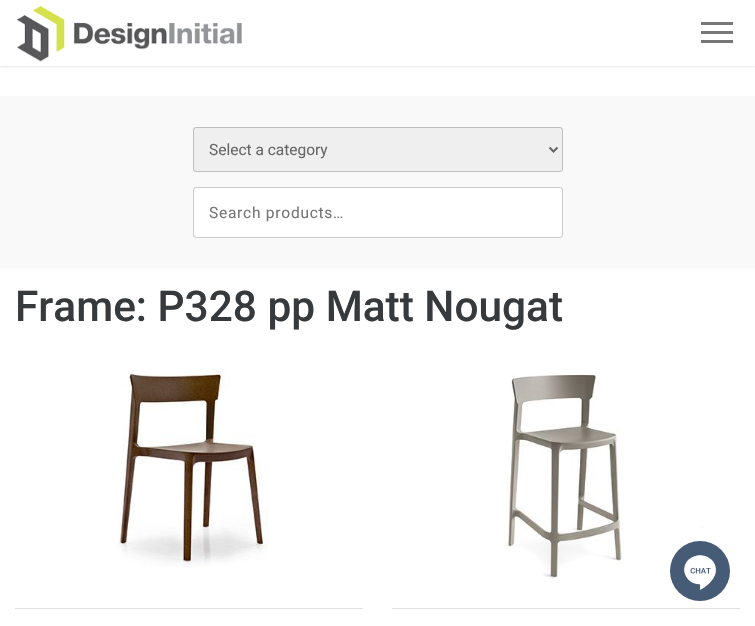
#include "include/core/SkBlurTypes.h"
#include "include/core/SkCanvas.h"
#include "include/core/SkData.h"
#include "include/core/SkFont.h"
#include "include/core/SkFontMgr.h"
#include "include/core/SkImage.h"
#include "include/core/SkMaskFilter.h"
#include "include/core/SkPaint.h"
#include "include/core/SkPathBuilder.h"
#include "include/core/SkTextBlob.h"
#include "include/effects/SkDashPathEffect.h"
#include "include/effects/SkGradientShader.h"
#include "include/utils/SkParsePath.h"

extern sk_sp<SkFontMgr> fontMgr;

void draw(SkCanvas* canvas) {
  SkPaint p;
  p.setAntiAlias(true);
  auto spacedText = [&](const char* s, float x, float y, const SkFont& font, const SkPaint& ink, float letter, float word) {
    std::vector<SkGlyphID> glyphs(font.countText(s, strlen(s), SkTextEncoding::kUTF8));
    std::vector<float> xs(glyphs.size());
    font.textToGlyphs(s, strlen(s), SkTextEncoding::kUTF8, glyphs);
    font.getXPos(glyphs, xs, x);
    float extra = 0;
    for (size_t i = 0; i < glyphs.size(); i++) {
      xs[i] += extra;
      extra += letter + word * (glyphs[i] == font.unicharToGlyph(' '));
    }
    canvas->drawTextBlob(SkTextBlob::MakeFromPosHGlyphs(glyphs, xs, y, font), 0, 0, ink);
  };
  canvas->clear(SK_ColorWHITE);
  canvas->save();
  canvas->clipRect(SkRect::MakeLTRB(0, 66, 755, 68));
  p.setColor(SkColorSetARGB(26, 0, 0, 0));
  p.setMaskFilter(SkMaskFilter::MakeBlur(kNormal_SkBlurStyle, 1.5f));
  canvas->drawRect(SkRect::MakeLTRB(0, 1, 755, 67), p);
  p.setMaskFilter(nullptr);
  canvas->restore();
  canvas->drawImageRect(SkImages::DeferredFromEncodedData(SkData::MakeFromFileName("images/1.png")), SkRect::MakeLTRB(16, 6, 242, 62), SkSamplingOptions());
  p.setColor(SkColorSetRGB(119, 119, 119));
  canvas->drawRect(SkRect::MakeLTRB(701, 40, 733, 43), p);
  canvas->drawRect(SkRect::MakeLTRB(701, 31, 733, 34), p);
  canvas->drawRect(SkRect::MakeLTRB(701, 22, 733, 25), p);
  p.setColor(SkColorSetRGB(249, 249, 249));
  canvas->drawRect(SkRect::MakeLTRB(0, 96, 755, 269), p);
  p.setColor(SkColorSetRGB(239, 239, 239));
  canvas->drawRoundRect(SkRect::MakeLTRB(193, 127, 563, 172), 3, 3, p);
  p.setStyle(SkPaint::kStroke_Style);
  p.setStrokeWidth(1);
  p.setColor(SkColorSetARGB(51, 0, 0, 0));
  canvas->drawRoundRect(SkRect::MakeLTRB(193.5f, 127.5f, 562.5f, 171.5f), 2.5f, 2.5f, p);
  p.setStrokeWidth(2);
  p.setColor(SkColorSetRGB(102, 102, 102));
  canvas->drawPath(SkPathBuilder().moveTo(549.5f, 147.5f).lineTo(553.5f, 151.5f).lineTo(557.5f, 147.5f).detach(), p);
  p.setStyle(SkPaint::kFill_Style);
  p.setColor(SK_ColorWHITE);
  canvas->drawRoundRect(SkRect::MakeLTRB(193, 187, 563, 238), 3, 3, p);
  p.setStyle(SkPaint::kStroke_Style);
  p.setStrokeWidth(1);
  p.setColor(SkColorSetARGB(51, 0, 0, 0));
  canvas->drawRoundRect(SkRect::MakeLTRB(193.5f, 187.5f, 562.5f, 237.5f), 2.5f, 2.5f, p);
  p.setStyle(SkPaint::kFill_Style);
  p.setColor(SkColorSetRGB(224, 224, 224));
  canvas->drawRect(SkRect::MakeLTRB(15, 608, 363, 609), p);
  canvas->drawImageRect(SkImages::DeferredFromEncodedData(SkData::MakeFromFileName("images/2.png")), SkRect::MakeLTRB(114, 369, 268, 567), SkSamplingOptions());
  canvas->drawRect(SkRect::MakeLTRB(392, 608, 740, 609), p);
  canvas->drawImageRect(SkImages::DeferredFromEncodedData(SkData::MakeFromFileName("images/3.png")), SkRect::MakeLTRB(505, 374, 624, 579), SkSamplingOptions());
  canvas->drawImageRect(SkImages::DeferredFromEncodedData(SkData::MakeFromFileName("images/4.png")), SkRect::MakeLTRB(670, 526, 730, 601), SkSamplingOptions());
  SkFont font1(fontMgr->matchFamilyStyle("Roboto", SkFontStyle::Normal()), 15.5f);
  font1.setSubpixel(true);
  p.setColor(SkColorSetRGB(102, 102, 102));
  canvas->drawString("Select a category", 209, 155, font1, p);
  p.setColor(SkColorSetRGB(117, 117, 117));
  spacedText("Search products…", 209, 218, font1, p, 0.75f, 0);
  SkFont font2(fontMgr->matchFamilyStyle("Roboto", SkFontStyle(500, SkFontStyle::kNormal_Width, SkFontStyle::kUpright_Slant)), 42.4f);
  font2.setSubpixel(true);
  p.setColor(SkColorSetRGB(55, 58, 60));
  canvas->drawString("Frame: P328 pp Matt Nougat", 15, 321, font2, p);
}
